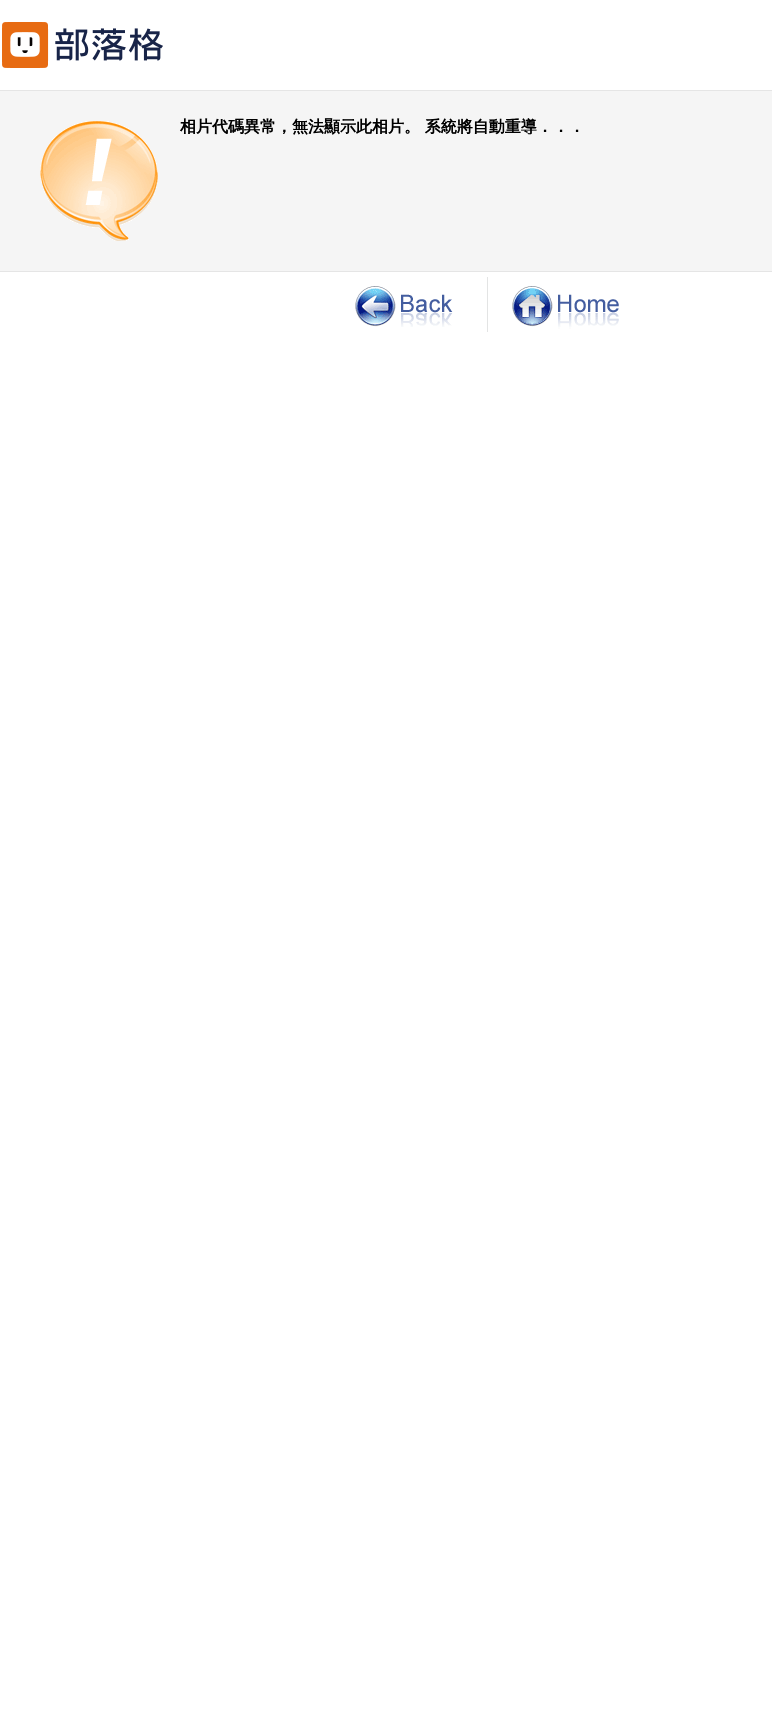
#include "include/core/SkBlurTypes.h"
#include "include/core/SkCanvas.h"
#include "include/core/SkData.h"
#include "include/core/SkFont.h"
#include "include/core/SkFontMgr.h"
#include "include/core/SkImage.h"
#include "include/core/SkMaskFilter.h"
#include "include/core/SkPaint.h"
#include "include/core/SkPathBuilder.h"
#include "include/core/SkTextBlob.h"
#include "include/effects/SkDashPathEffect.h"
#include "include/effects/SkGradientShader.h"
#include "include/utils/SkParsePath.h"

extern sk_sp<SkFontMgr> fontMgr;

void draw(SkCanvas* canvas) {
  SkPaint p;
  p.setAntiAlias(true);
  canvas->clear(SK_ColorWHITE);
  canvas->drawImageRect(SkImages::DeferredFromEncodedData(SkData::MakeFromFileName("images/1.png")), SkRect::MakeLTRB(2, 22, 163, 68), SkSamplingOptions());
  p.setColor(SkColorSetRGB(245, 245, 245));
  canvas->drawRect(SkRect::MakeLTRB(0, 91, 772, 271), p);
  canvas->drawImageRect(SkImages::DeferredFromEncodedData(SkData::MakeFromFileName("images/2.png")), SkRect::MakeLTRB(40, 121, 158, 241), SkSamplingOptions());
  p.setColor(SkColorSetRGB(229, 229, 229));
  canvas->drawRect(SkRect::MakeLTRB(0, 90, 772, 91), p);
  canvas->drawRect(SkRect::MakeLTRB(0, 271, 772, 272), p);
  canvas->drawImageRect(SkImages::DeferredFromEncodedData(SkData::MakeFromFileName("images/3.png")), SkRect::MakeLTRB(355, 286, 453, 327), SkSamplingOptions());
  canvas->drawImageRect(SkImages::DeferredFromEncodedData(SkData::MakeFromFileName("images/4.png")), SkRect::MakeLTRB(487, 277, 619, 332), SkSamplingOptions());
  SkFont font1(fontMgr->matchFamilyStyle("WenQuanYi Zen Hei", SkFontStyle::Bold()), 16);
  font1.setSubpixel(true);
  p.setColor(SK_ColorBLACK);
  canvas->drawString("相片代碼異常，無法顯示此相片。 系統將自動重導．．．", 180, 132, font1, p);
}
